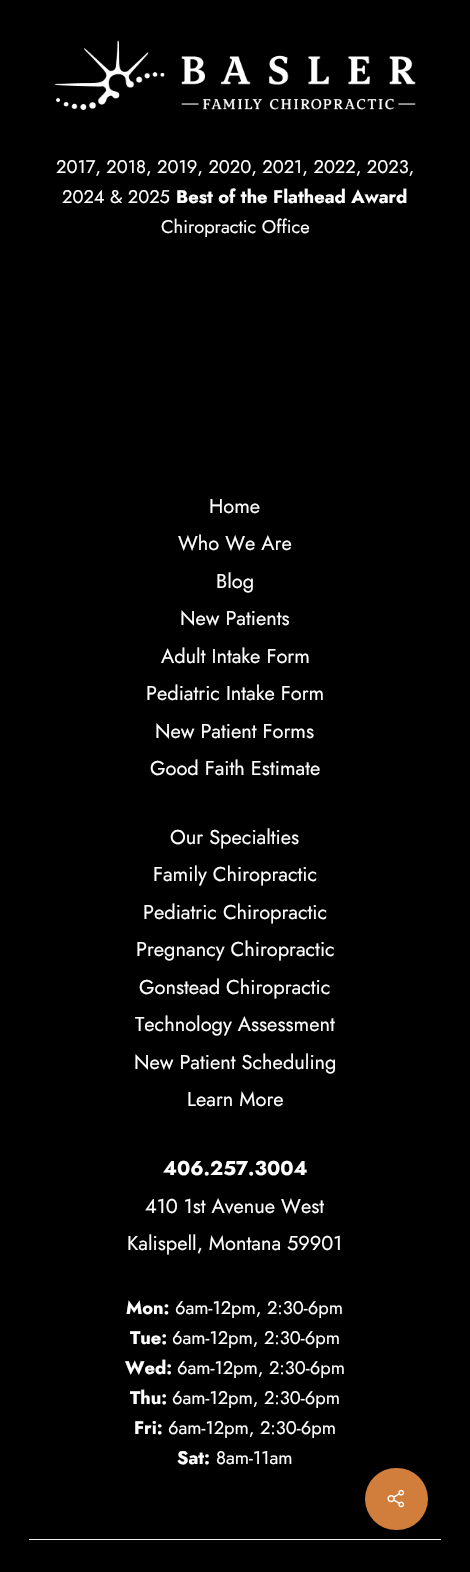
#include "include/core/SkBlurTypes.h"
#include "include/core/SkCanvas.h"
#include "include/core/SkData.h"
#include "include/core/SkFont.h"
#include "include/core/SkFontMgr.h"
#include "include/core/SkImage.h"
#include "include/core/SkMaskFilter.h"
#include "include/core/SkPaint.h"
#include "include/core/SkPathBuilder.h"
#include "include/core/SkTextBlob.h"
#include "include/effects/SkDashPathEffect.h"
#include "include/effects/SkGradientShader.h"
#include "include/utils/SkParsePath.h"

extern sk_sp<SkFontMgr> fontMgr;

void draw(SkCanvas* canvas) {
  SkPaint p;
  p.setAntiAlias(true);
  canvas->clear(SK_ColorBLACK);
  canvas->drawImageRect(SkImages::DeferredFromEncodedData(SkData::MakeFromFileName("images/1.png")), SkRect::MakeLTRB(54, 40, 416, 110), SkSamplingOptions());
  p.setColor(SkColorSetRGB(242, 242, 242));
  canvas->drawRect(SkRect::MakeLTRB(29, 1539, 441, 1540), p);
  p.setColor(SkColorSetRGB(209, 125, 59));
  canvas->drawRoundRect(SkRect::MakeLTRB(365, 1468, 428, 1530), 31, 31, p);
  canvas->drawImageRect(SkImages::DeferredFromEncodedData(SkData::MakeFromFileName("images/2.png")), SkRect::MakeLTRB(387, 1489, 405, 1508), SkSamplingOptions());
  SkFont font1(fontMgr->matchFamilyStyle("Jost", SkFontStyle::Normal()), 18.3f);
  font1.setSubpixel(true);
  p.setColor(SK_ColorWHITE);
  canvas->drawString("2017, 2018, 2019, 2020, 2021, 2022, 2023,", 56, 173, font1, p);
  canvas->drawString("2024 & 2025", 62, 203, font1, p);
  SkFont font2(fontMgr->matchFamilyStyle("Jost", SkFontStyle::Bold()), 18.3f);
  font2.setSubpixel(true);
  canvas->drawString("Best of the Flathead Award", 176, 203, font2, p);
  canvas->drawString("Chiropractic Office", 161, 233, font1, p);
  SkFont font3(fontMgr->matchFamilyStyle("Jost", SkFontStyle::Normal()), 20);
  font3.setSubpixel(true);
  canvas->drawString("Home", 209, 513, font3, p);
  canvas->drawString("Who We Are", 178, 550, font3, p);
  canvas->drawString("Blog", 216, 588, font3, p);
  canvas->drawString("New Patients", 180, 625, font3, p);
  canvas->drawString("Adult Intake Form", 161, 663, font3, p);
  canvas->drawString("Pediatric Intake Form", 146, 700, font3, p);
  canvas->drawString("New Patient Forms", 155, 738, font3, p);
  canvas->drawString("Good Faith Estimate", 150, 775, font3, p);
  canvas->drawString("Our Specialties", 170, 844, font3, p);
  canvas->drawString("Family Chiropractic", 153, 881, font3, p);
  canvas->drawString("Pediatric Chiropractic", 143, 919, font3, p);
  canvas->drawString("Pregnancy Chiropractic", 136, 956, font3, p);
  canvas->drawString("Gonstead Chiropractic", 139, 994, font3, p);
  canvas->drawString("Technology Assessment", 135, 1031, font3, p);
  canvas->drawString("New Patient Scheduling", 134, 1069, font3, p);
  canvas->drawString("Learn More", 187, 1106, font3, p);
  SkFont font4(fontMgr->matchFamilyStyle("Jost", SkFontStyle::Bold()), 20);
  font4.setSubpixel(true);
  canvas->drawString("406.257.3004", 163, 1175, font4, p);
  canvas->drawString("410 1st Avenue West", 145, 1213, font3, p);
  canvas->drawString("Kalispell, Montana 59901", 127, 1250, font3, p);
  canvas->drawString("Mon:", 126, 1314, font2, p);
  canvas->drawString("6am-12pm, 2:30-6pm", 175, 1314, font1, p);
  canvas->drawString("Tue:", 130, 1344, font2, p);
  canvas->drawString("6am-12pm, 2:30-6pm", 172, 1344, font1, p);
  canvas->drawString("Wed:", 125, 1374, font2, p);
  canvas->drawString("6am-12pm, 2:30-6pm", 177, 1374, font1, p);
  canvas->drawString("Thu:", 130, 1404, font2, p);
  canvas->drawString("6am-12pm, 2:30-6pm", 172, 1404, font1, p);
  canvas->drawString("Fri:", 134, 1434, font2, p);
  canvas->drawString("6am-12pm, 2:30-6pm", 168, 1434, font1, p);
  canvas->drawString("Sat:", 177, 1464, font2, p);
  canvas->drawString("8am-11am", 216, 1464, font1, p);
}
